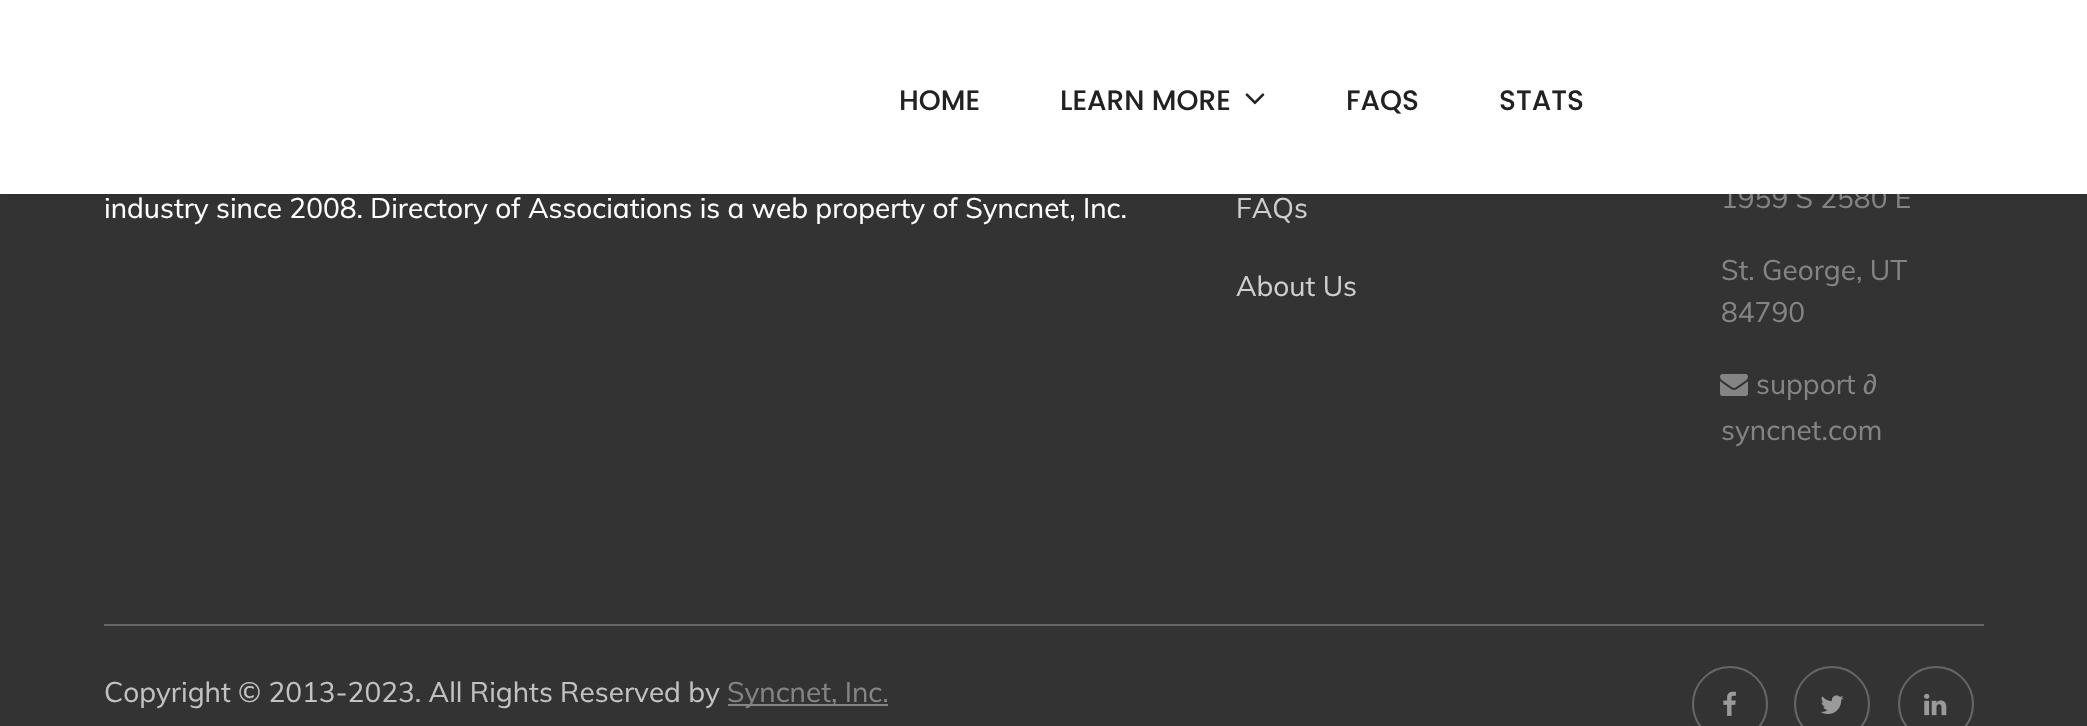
#include "include/core/SkBlurTypes.h"
#include "include/core/SkCanvas.h"
#include "include/core/SkData.h"
#include "include/core/SkFont.h"
#include "include/core/SkFontMgr.h"
#include "include/core/SkImage.h"
#include "include/core/SkMaskFilter.h"
#include "include/core/SkPaint.h"
#include "include/core/SkPathBuilder.h"
#include "include/core/SkTextBlob.h"
#include "include/effects/SkDashPathEffect.h"
#include "include/effects/SkGradientShader.h"
#include "include/utils/SkParsePath.h"

extern sk_sp<SkFontMgr> fontMgr;

void draw(SkCanvas* canvas) {
  SkPaint p;
  p.setAntiAlias(true);
  canvas->clear(SkColorSetRGB(51, 51, 51));
  p.setColor(SkColorSetARGB(26, 0, 0, 0));
  p.setMaskFilter(SkMaskFilter::MakeBlur(kNormal_SkBlurStyle, 4));
  canvas->drawRect(SkRect::MakeLTRB(0, 2, 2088, 196), p);
  p.setMaskFilter(nullptr);
  canvas->drawImageRect(SkImages::DeferredFromEncodedData(SkData::MakeFromFileName("images/2.png")), SkRect::MakeLTRB(1720, 374, 1748, 396), SkSamplingOptions());
  p.setColor(SkColorSetRGB(102, 102, 102));
  canvas->drawRect(SkRect::MakeLTRB(104, 624, 1984, 626), p);
  p.setColor(SkColorSetRGB(132, 132, 132));
  canvas->drawRect(SkRect::MakeLTRB(728, 704, 888, 706), p);
  p.setStyle(SkPaint::kStroke_Style);
  p.setStrokeWidth(2);
  p.setColor(SkColorSetRGB(102, 102, 102));
  canvas->drawCircle(1730, 704, 37, p);
  canvas->drawImageRect(SkImages::DeferredFromEncodedData(SkData::MakeFromFileName("images/3.png")), SkRect::MakeLTRB(1723, 691, 1736, 716), SkSamplingOptions());
  canvas->drawCircle(1832, 704, 37, p);
  canvas->drawImageRect(SkImages::DeferredFromEncodedData(SkData::MakeFromFileName("images/4.png")), SkRect::MakeLTRB(1821, 695, 1844, 714), SkSamplingOptions());
  canvas->drawCircle(1936, 704, 37, p);
  canvas->drawImageRect(SkImages::DeferredFromEncodedData(SkData::MakeFromFileName("images/5.png")), SkRect::MakeLTRB(1924, 693, 1947, 716), SkSamplingOptions());
  SkFont font1(fontMgr->matchFamilyStyle("Muli", SkFontStyle::Normal()), 28);
  font1.setSubpixel(true);
  p.setStyle(SkPaint::kFill_Style);
  p.setColor(SK_ColorWHITE);
  canvas->drawString("industry since 2008. Directory of Associations is a web property of Syncnet, Inc.", 104, 218, font1, p);
  p.setColor(SkColorSetRGB(207, 207, 207));
  canvas->drawString("FAQs", 1236, 218, font1, p);
  canvas->drawString("About Us", 1236, 296, font1, p);
  p.setColor(SkColorSetRGB(132, 132, 132));
  canvas->drawString("1959 S 2580 E", 1721, 208, font1, p);
  p.setColor(SK_ColorWHITE);
  canvas->drawRect(SkRect::MakeLTRB(0, 0, 2087, 194), p);
  SkFont font2(fontMgr->matchFamilyStyle("Poppins", SkFontStyle(500, SkFontStyle::kNormal_Width, SkFontStyle::kUpright_Slant)), 28);
  font2.setSubpixel(true);
  p.setColor(SkColorSetRGB(34, 34, 34));
  canvas->drawString("STATS", 1499, 110, font2, p);
  canvas->drawString("FAQS", 1346, 110, font2, p);
  canvas->drawImageRect(SkImages::DeferredFromEncodedData(SkData::MakeFromFileName("images/1.png")), SkRect::MakeLTRB(1245, 93, 1265, 105), SkSamplingOptions());
  canvas->drawString("LEARN MORE", 1060, 110, font2, p);
  canvas->drawString("HOME", 899, 110, font2, p);
  p.setColor(SkColorSetRGB(132, 132, 132));
  canvas->drawString("St. George, UT", 1721, 280, font1, p);
  canvas->drawString("84790", 1721, 322, font1, p);
  canvas->drawString("support", 1756, 394, font1, p);
  SkFont font3(fontMgr->matchFamilyStyle("Liberation Sans", SkFontStyle::Normal()), 28);
  font3.setSubpixel(true);
  canvas->drawString("∂", 1863, 394, font3, p);
  canvas->drawString("syncnet.com", 1721, 440, font1, p);
  p.setColor(SkColorSetRGB(194, 194, 194));
  canvas->drawString("Copyright © 2013-2023. All Rights Reserved by", 104, 702, font1, p);
  p.setColor(SkColorSetRGB(132, 132, 132));
  canvas->drawString("Syncnet, Inc.", 727, 702, font1, p);
}
